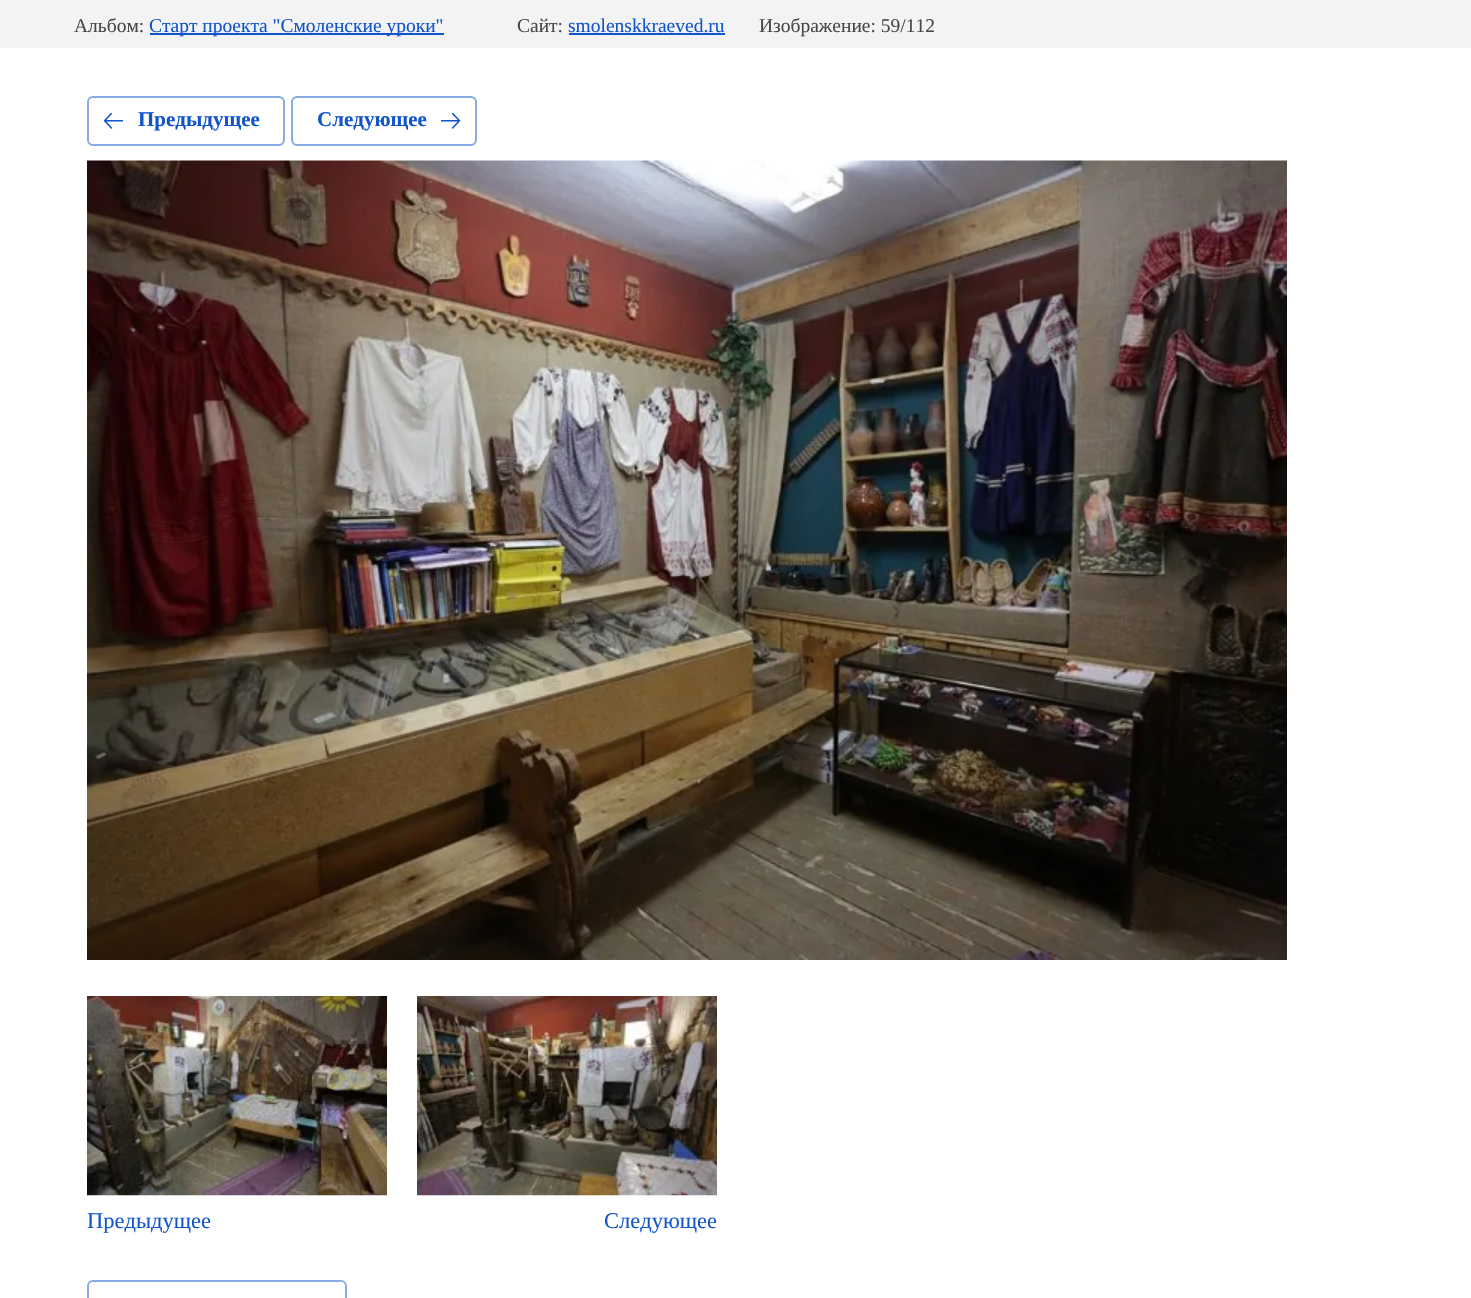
#include "include/core/SkBlurTypes.h"
#include "include/core/SkCanvas.h"
#include "include/core/SkData.h"
#include "include/core/SkFont.h"
#include "include/core/SkFontMgr.h"
#include "include/core/SkImage.h"
#include "include/core/SkMaskFilter.h"
#include "include/core/SkPaint.h"
#include "include/core/SkPathBuilder.h"
#include "include/core/SkTextBlob.h"
#include "include/effects/SkDashPathEffect.h"
#include "include/effects/SkGradientShader.h"
#include "include/utils/SkParsePath.h"

extern sk_sp<SkFontMgr> fontMgr;

void draw(SkCanvas* canvas) {
  SkPaint p;
  p.setAntiAlias(true);
  canvas->clear(SK_ColorWHITE);
  p.setColor(SkColorSetRGB(243, 243, 243));
  canvas->drawRect(SkRect::MakeLTRB(0, 0, 1471, 48), p);
  p.setColor(SkColorSetRGB(17, 85, 204));
  canvas->drawRect(SkRect::MakeLTRB(150, 33, 444, 35), p);
  canvas->drawRect(SkRect::MakeLTRB(569, 33, 725, 35), p);
  p.setStyle(SkPaint::kStroke_Style);
  p.setStrokeWidth(2);
  p.setColor(SkColorSetRGB(136, 170, 230));
  canvas->drawRoundRect(SkRect::MakeLTRB(88, 97, 284, 145), 5, 5, p);
  canvas->drawImageRect(SkImages::DeferredFromEncodedData(SkData::MakeFromFileName("images/1.png")), SkRect::MakeLTRB(104, 113, 123, 129), SkSamplingOptions());
  canvas->drawRoundRect(SkRect::MakeLTRB(292, 97, 476, 145), 5, 5, p);
  canvas->drawImageRect(SkImages::DeferredFromEncodedData(SkData::MakeFromFileName("images/2.png")), SkRect::MakeLTRB(441, 113, 461, 129), SkSamplingOptions());
  canvas->drawImageRect(SkImages::DeferredFromEncodedData(SkData::MakeFromFileName("images/3.png")), SkRect::MakeLTRB(87, 160, 1287, 960), SkSamplingOptions());
  canvas->drawImageRect(SkImages::DeferredFromEncodedData(SkData::MakeFromFileName("images/4.png")), SkRect::MakeLTRB(87, 996, 387, 1196), SkSamplingOptions());
  canvas->drawImageRect(SkImages::DeferredFromEncodedData(SkData::MakeFromFileName("images/5.png")), SkRect::MakeLTRB(417, 996, 717, 1196), SkSamplingOptions());
  canvas->drawRoundRect(SkRect::MakeLTRB(88, 1281, 346, 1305), 5, 5, p);
  SkFont font1(fontMgr->matchFamilyStyle("Liberation Serif", SkFontStyle::Normal()), 19.5f);
  font1.setSubpixel(true);
  p.setStyle(SkPaint::kFill_Style);
  p.setColor(SkColorSetRGB(72, 72, 72));
  canvas->drawString("Альбом:", 74, 32, font1, p);
  p.setColor(SkColorSetRGB(17, 85, 204));
  canvas->drawString("Старт проекта \"Смоленские уроки\"", 149, 32, font1, p);
  p.setColor(SkColorSetRGB(72, 72, 72));
  canvas->drawString("Сайт:", 517, 32, font1, p);
  p.setColor(SkColorSetRGB(17, 85, 204));
  canvas->drawString("smolenskkraeved.ru", 568, 32, font1, p);
  p.setColor(SkColorSetRGB(72, 72, 72));
  canvas->drawString("Изображение: 59/112", 759, 32, font1, p);
  SkFont font2(fontMgr->matchFamilyStyle("Liberation Serif", SkFontStyle::Bold()), 21);
  font2.setSubpixel(true);
  p.setColor(SkColorSetRGB(17, 85, 204));
  canvas->drawString("Предыдущее", 138, 126, font2, p);
  canvas->drawString("Следующее", 317, 126, font2, p);
  SkFont font3(fontMgr->matchFamilyStyle("Liberation Serif", SkFontStyle::Normal()), 22.5f);
  font3.setSubpixel(true);
  canvas->drawString("Предыдущее", 87, 1228, font3, p);
  canvas->drawString("Следующее", 604, 1228, font3, p);
}
